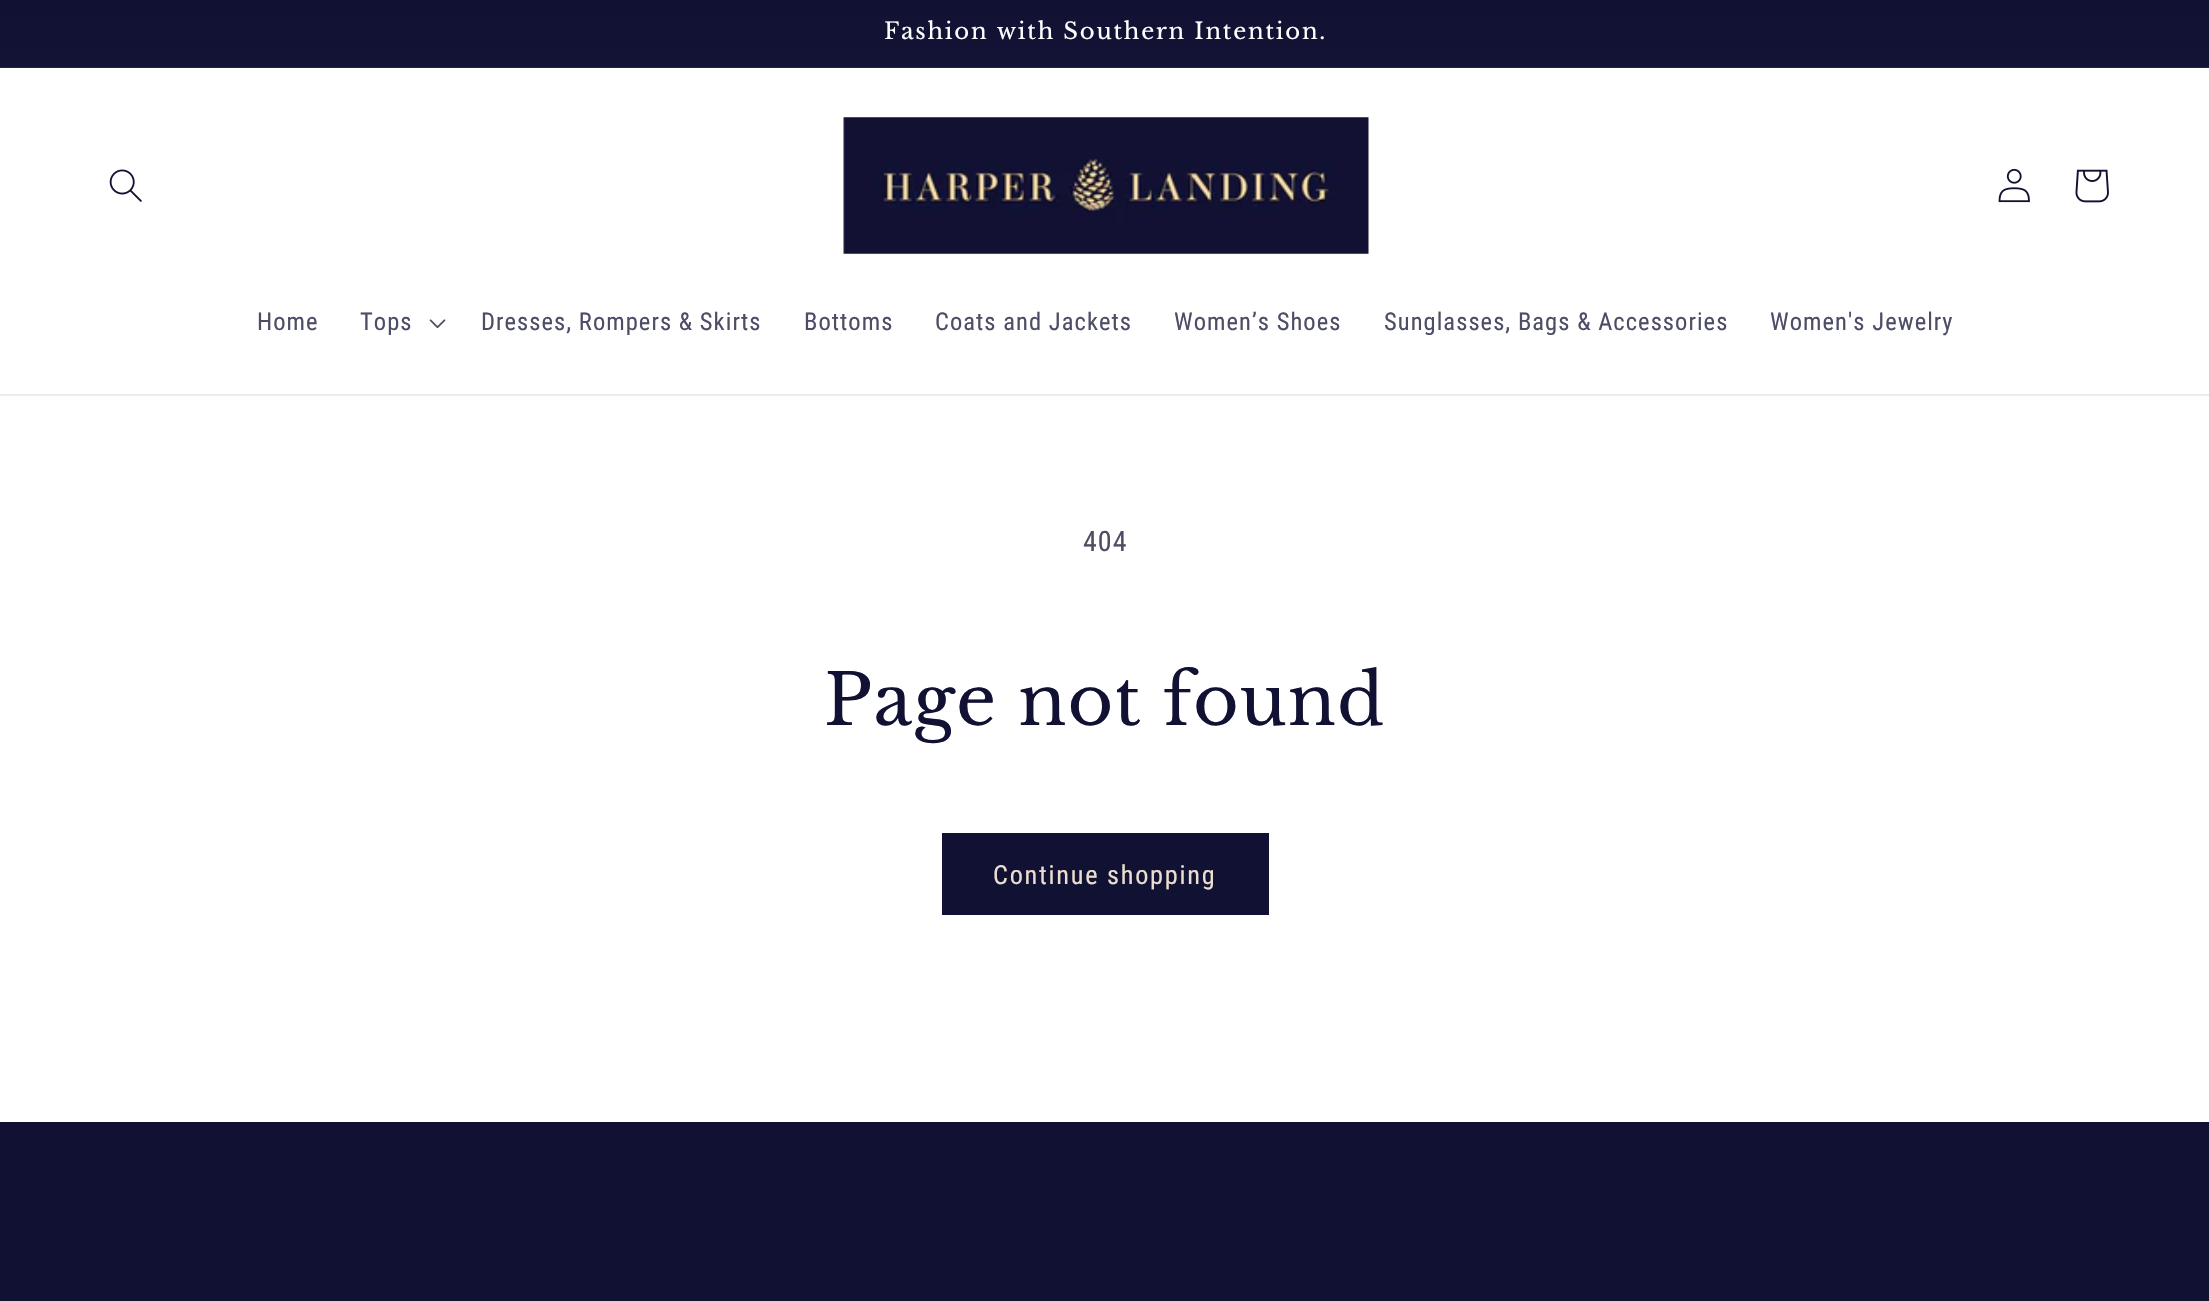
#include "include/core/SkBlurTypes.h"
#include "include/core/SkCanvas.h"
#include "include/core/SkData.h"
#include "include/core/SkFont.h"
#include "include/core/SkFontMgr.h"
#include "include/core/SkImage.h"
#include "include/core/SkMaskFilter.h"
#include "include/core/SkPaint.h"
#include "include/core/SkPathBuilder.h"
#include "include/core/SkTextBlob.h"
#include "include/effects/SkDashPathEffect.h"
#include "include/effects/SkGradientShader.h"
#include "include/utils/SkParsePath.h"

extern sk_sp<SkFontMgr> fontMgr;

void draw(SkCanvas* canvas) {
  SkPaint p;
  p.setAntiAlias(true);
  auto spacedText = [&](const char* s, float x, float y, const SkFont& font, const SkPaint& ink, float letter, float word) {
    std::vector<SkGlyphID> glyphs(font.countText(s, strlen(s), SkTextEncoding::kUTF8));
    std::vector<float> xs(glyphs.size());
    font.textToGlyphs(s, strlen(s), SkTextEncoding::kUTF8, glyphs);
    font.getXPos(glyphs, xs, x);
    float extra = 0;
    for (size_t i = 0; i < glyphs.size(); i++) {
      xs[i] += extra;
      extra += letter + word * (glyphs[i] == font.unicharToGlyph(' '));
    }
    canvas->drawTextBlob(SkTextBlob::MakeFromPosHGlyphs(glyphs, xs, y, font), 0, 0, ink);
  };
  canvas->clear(SK_ColorWHITE);
  {
    const SkColor colors[] = {SkColorSetRGB(34, 35, 89), SkColorSetRGB(17, 18, 51)};
    const float stops[] = {0.04f, 1};
    const SkPoint ends[] = {{1105, 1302}, {1105, 0}};
    p.setShader(SkGradientShader::MakeLinear(ends, colors, stops, 2, SkTileMode::kClamp));
    p.setAlpha(255);
  }
  canvas->drawRect(SkRect::MakeLTRB(0, 0, 2209, 67), p);
  {
    const SkColor colors[] = {SkColorSetRGB(52, 53, 102), SkColorSetRGB(36, 37, 67)};
    const float stops[] = {0.04f, 1};
    const SkPoint ends[] = {{1105, 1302}, {1105, 0}};
    p.setShader(SkGradientShader::MakeLinear(ends, colors, stops, 2, SkTileMode::kClamp));
    p.setAlpha(255);
  }
  canvas->drawRect(SkRect::MakeLTRB(0, 67, 2209, 68), p);
  p.setShader(nullptr);
  p.setColor(SkColorSetRGB(236, 236, 239));
  canvas->drawRect(SkRect::MakeLTRB(0, 394, 2209, 396), p);
  canvas->drawImageRect(SkImages::DeferredFromEncodedData(SkData::MakeFromFileName("images/1.png")), SkRect::MakeLTRB(109, 169, 142, 202), SkSamplingOptions());
  canvas->drawImageRect(SkImages::DeferredFromEncodedData(SkData::MakeFromFileName("images/2.png")), SkRect::MakeLTRB(843, 117, 1369, 254), SkSamplingOptions());
  canvas->drawImageRect(SkImages::DeferredFromEncodedData(SkData::MakeFromFileName("images/3.png")), SkRect::MakeLTRB(1998, 168, 2030, 203), SkSamplingOptions());
  canvas->drawImageRect(SkImages::DeferredFromEncodedData(SkData::MakeFromFileName("images/4.png")), SkRect::MakeLTRB(2075, 169, 2109, 203), SkSamplingOptions());
  canvas->drawImageRect(SkImages::DeferredFromEncodedData(SkData::MakeFromFileName("images/5.png")), SkRect::MakeLTRB(429, 319, 446, 329), SkSamplingOptions());
  p.setColor(SkColorSetRGB(17, 17, 51));
  canvas->drawRect(SkRect::MakeLTRB(942, 833, 1269, 915), p);
  canvas->drawRect(SkRect::MakeLTRB(0, 1122, 2209, 1301), p);
  SkFont font1(fontMgr->matchFamilyStyle("Libre Baskerville", SkFontStyle::Normal()), 22.75f);
  font1.setSubpixel(true);
  p.setColor(SK_ColorWHITE);
  spacedText("Fashion with Southern Intention.", 884, 39, font1, p, 1.75f, 0);
  SkFont font2(fontMgr->matchFamilyStyle("Roboto Condensed", SkFontStyle::Normal()), 24.5f);
  font2.setSubpixel(true);
  p.setColor(SkColorSetRGB(77, 77, 102));
  spacedText("Home", 257, 330, font2, p, 1.05f, 0);
  spacedText("Tops", 360, 330, font2, p, 1.05f, 0);
  spacedText("Dresses, Rompers & Skirts", 481, 330, font2, p, 1.05f, 0);
  spacedText("Bottoms", 804, 330, font2, p, 1.05f, 0);
  spacedText("Coats and Jackets", 935, 330, font2, p, 1.05f, 0);
  spacedText("Women’s Shoes", 1174, 330, font2, p, 1.05f, 0);
  spacedText("Sunglasses, Bags & Accessories", 1384, 330, font2, p, 1.05f, 0);
  spacedText("Women's Jewelry", 1770, 330, font2, p, 1.05f, 0);
  SkFont font3(fontMgr->matchFamilyStyle("Roboto Condensed", SkFontStyle::Normal()), 28);
  font3.setSubpixel(true);
  spacedText("404", 1083, 551, font3, p, 1.05f, 0);
  SkFont font4(fontMgr->matchFamilyStyle("Libre Baskerville", SkFontStyle::Normal()), 70);
  font4.setSubpixel(true);
  p.setColor(SkColorSetRGB(17, 17, 51));
  spacedText("Page not found", 824, 725, font4, p, 1.05f, 0);
  SkFont font5(fontMgr->matchFamilyStyle("Roboto Condensed", SkFontStyle::Normal()), 26.25f);
  font5.setSubpixel(true);
  p.setColor(SkColorSetRGB(235, 221, 208));
  spacedText("Continue shopping", 993, 884, font5, p, 1.75f, 0);
}
